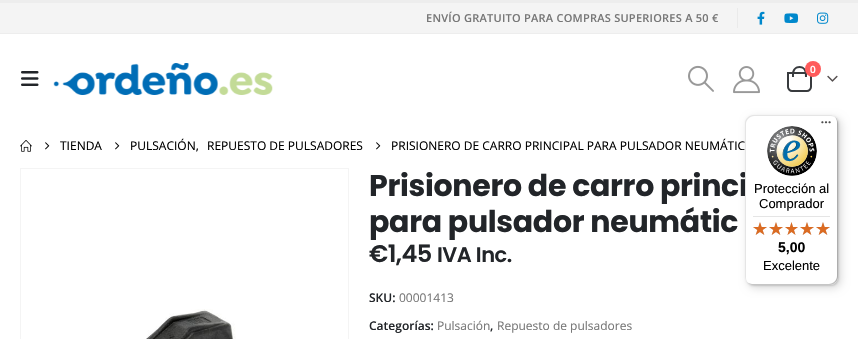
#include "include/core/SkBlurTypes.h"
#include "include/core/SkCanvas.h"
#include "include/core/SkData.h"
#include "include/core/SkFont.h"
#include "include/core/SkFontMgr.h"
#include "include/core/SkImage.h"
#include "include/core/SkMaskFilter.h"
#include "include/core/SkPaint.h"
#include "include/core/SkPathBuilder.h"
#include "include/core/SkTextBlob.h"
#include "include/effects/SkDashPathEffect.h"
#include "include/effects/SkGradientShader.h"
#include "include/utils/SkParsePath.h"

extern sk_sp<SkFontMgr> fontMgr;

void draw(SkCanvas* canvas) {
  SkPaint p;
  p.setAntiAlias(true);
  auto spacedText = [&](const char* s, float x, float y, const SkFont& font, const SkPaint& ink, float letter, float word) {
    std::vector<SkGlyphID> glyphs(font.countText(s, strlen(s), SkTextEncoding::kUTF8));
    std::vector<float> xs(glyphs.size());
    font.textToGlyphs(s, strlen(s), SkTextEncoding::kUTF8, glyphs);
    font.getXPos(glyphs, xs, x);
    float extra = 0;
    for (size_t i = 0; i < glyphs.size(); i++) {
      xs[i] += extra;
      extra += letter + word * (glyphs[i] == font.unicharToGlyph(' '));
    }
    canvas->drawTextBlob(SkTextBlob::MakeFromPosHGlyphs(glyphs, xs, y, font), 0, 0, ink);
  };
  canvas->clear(SK_ColorWHITE);
  p.setColor(SkColorSetRGB(237, 237, 237));
  canvas->drawRect(SkRect::MakeLTRB(0, 0, 858, 3), p);
  p.setColor(SkColorSetRGB(244, 244, 244));
  canvas->drawRect(SkRect::MakeLTRB(0, 3, 858, 33), p);
  p.setColor(SkColorSetRGB(237, 237, 237));
  canvas->drawRect(SkRect::MakeLTRB(0, 33, 858, 34), p);
  p.setColor(SkColorSetRGB(234, 234, 234));
  canvas->drawRect(SkRect::MakeLTRB(737, 8, 738, 28), p);
  canvas->drawImageRect(SkImages::DeferredFromEncodedData(SkData::MakeFromFileName("images/1.png")), SkRect::MakeLTRB(757, 11, 765, 25), SkSamplingOptions());
  canvas->drawImageRect(SkImages::DeferredFromEncodedData(SkData::MakeFromFileName("images/2.png")), SkRect::MakeLTRB(784, 13, 799, 23), SkSamplingOptions());
  canvas->drawImageRect(SkImages::DeferredFromEncodedData(SkData::MakeFromFileName("images/3.png")), SkRect::MakeLTRB(817, 12, 829, 24), SkSamplingOptions());
  canvas->drawImageRect(SkImages::DeferredFromEncodedData(SkData::MakeFromFileName("images/4.png")), SkRect::MakeLTRB(21, 71, 39, 86), SkSamplingOptions());
  canvas->drawImageRect(SkImages::DeferredFromEncodedData(SkData::MakeFromFileName("images/5.png")), SkRect::MakeLTRB(53, 63, 273, 95), SkSamplingOptions());
  canvas->drawImageRect(SkImages::DeferredFromEncodedData(SkData::MakeFromFileName("images/6.png")), SkRect::MakeLTRB(688, 65, 714, 92), SkSamplingOptions());
  canvas->drawImageRect(SkImages::DeferredFromEncodedData(SkData::MakeFromFileName("images/7.png")), SkRect::MakeLTRB(733, 66, 760, 94), SkSamplingOptions());
  p.setStyle(SkPaint::kStroke_Style);
  p.setStrokeWidth(2);
  p.setColor(SkColorSetRGB(56, 59, 62));
  canvas->drawPath(SkPathBuilder().moveTo(788, 73).lineTo(811, 73).lineTo(811, 87).cubicTo(811, 89, 809, 91, 807, 91).lineTo(792, 91).cubicTo(790, 91, 788, 89, 788, 87).close().detach(), p);
  p.setStyle(SkPaint::kFill_Style);
  canvas->drawPath(SkPathBuilder(SkPathFillType::kEvenOdd).moveTo(799.5f, 66).cubicTo(803.5f, 66, 807, 69.5f, 807, 73.5f).lineTo(807, 77).lineTo(792, 77).lineTo(792, 73.5f).cubicTo(792, 69.5f, 795.5f, 66, 799.5f, 66).close().moveTo(799.5f, 68).cubicTo(805, 68, 805, 73, 805, 77).lineTo(794, 77).cubicTo(794, 73, 794, 68, 799.5f, 68).close().detach(), p);
  p.setColor(SkColorSetRGB(255, 91, 91));
  canvas->drawCircle(813, 69, 8, p);
  canvas->drawImageRect(SkImages::DeferredFromEncodedData(SkData::MakeFromFileName("images/8.png")), SkRect::MakeLTRB(827, 75, 838, 82), SkSamplingOptions());
  canvas->drawImageRect(SkImages::DeferredFromEncodedData(SkData::MakeFromFileName("images/9.png")), SkRect::MakeLTRB(20, 140, 32, 152), SkSamplingOptions());
  canvas->drawImageRect(SkImages::DeferredFromEncodedData(SkData::MakeFromFileName("images/10.png")), SkRect::MakeLTRB(45, 142, 50, 150), SkSamplingOptions());
  canvas->drawImageRect(SkImages::DeferredFromEncodedData(SkData::MakeFromFileName("images/10.png")), SkRect::MakeLTRB(115, 142, 120, 150), SkSamplingOptions());
  canvas->drawImageRect(SkImages::DeferredFromEncodedData(SkData::MakeFromFileName("images/10.png")), SkRect::MakeLTRB(376, 142, 381, 150), SkSamplingOptions());
  p.setStyle(SkPaint::kStroke_Style);
  p.setStrokeWidth(1);
  p.setColor(SkColorSetRGB(244, 244, 244));
  canvas->drawRect(SkRect::MakeLTRB(20.5f, 168.5f, 348.5f, 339.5f), p);
  canvas->drawImageRect(SkImages::DeferredFromEncodedData(SkData::MakeFromFileName("images/11.png")), SkRect::MakeLTRB(146, 309, 236, 339), SkSamplingOptions());
  p.setStyle(SkPaint::kFill_Style);
  p.setColor(SkColorSetARGB(38, 0, 0, 0));
  p.setMaskFilter(SkMaskFilter::MakeBlur(kNormal_SkBlurStyle, 4));
  canvas->drawRoundRect(SkRect::MakeLTRB(748, 118, 841, 288), 8, 8, p);
  p.setMaskFilter(nullptr);
  p.setMaskFilter(SkMaskFilter::MakeBlur(kNormal_SkBlurStyle, 1));
  canvas->drawRoundRect(SkRect::MakeLTRB(746, 116, 839, 286), 8, 8, p);
  p.setMaskFilter(nullptr);
  SkFont font1(fontMgr->matchFamilyStyle("Open Sans", SkFontStyle(600, SkFontStyle::kNormal_Width, SkFontStyle::kUpright_Slant)), 11);
  font1.setSubpixel(true);
  p.setColor(SkColorSetRGB(119, 119, 119));
  spacedText("ENVÍO GRATUITO PARA COMPRAS SUPERIORES A 50 €", 426, 22, font1, p, 0.25f, 0);
  SkFont font2(fontMgr->matchFamilyStyle("Open Sans", SkFontStyle(600, SkFontStyle::kNormal_Width, SkFontStyle::kUpright_Slant)), 10);
  font2.setSubpixel(true);
  p.setColor(SK_ColorWHITE);
  canvas->drawString("0", 810, 73, font2, p);
  SkFont font3(fontMgr->matchFamilyStyle("Open Sans", SkFontStyle::Normal()), 12);
  font3.setSubpixel(true);
  p.setColor(SK_ColorBLACK);
  canvas->drawString("TIENDA", 60, 150, font3, p);
  canvas->drawString("PULSACIÓN,", 130, 150, font3, p);
  canvas->drawString("REPUESTO DE PULSADORES", 207, 150, font3, p);
  canvas->drawString("PRISIONERO DE CARRO PRINCIPAL PARA PULSADOR NEUMÁTIC", 391, 150, font3, p);
  SkFont font4(fontMgr->matchFamilyStyle("Poppins", SkFontStyle::Bold()), 30);
  font4.setSubpixel(true);
  p.setColor(SkColorSetRGB(34, 37, 41));
  spacedText("Prisionero de carro princi", 369, 196, font4, p, -0.3f, 0);
  spacedText("para pulsador neumátic", 369, 232, font4, p, -0.3f, 0);
  SkFont font5(fontMgr->matchFamilyStyle("Poppins", SkFontStyle(600, SkFontStyle::kNormal_Width, SkFontStyle::kUpright_Slant)), 24);
  font5.setSubpixel(true);
  spacedText("€1,45", 369, 262, font5, p, -0.5f, 0);
  SkFont font6(fontMgr->matchFamilyStyle("Poppins", SkFontStyle(600, SkFontStyle::kNormal_Width, SkFontStyle::kUpright_Slant)), 21);
  font6.setSubpixel(true);
  spacedText("IVA Inc.", 437, 262, font6, p, -0.5f, 0);
  SkFont font7(fontMgr->matchFamilyStyle("Open Sans", SkFontStyle(600, SkFontStyle::kNormal_Width, SkFontStyle::kUpright_Slant)), 12);
  font7.setSubpixel(true);
  canvas->drawString("SKU:", 369, 302, font7, p);
  p.setColor(SkColorSetRGB(119, 119, 119));
  canvas->drawString("00001413", 399, 302, font3, p);
  p.setColor(SkColorSetRGB(34, 37, 41));
  canvas->drawString("Categorías:", 369, 330, font7, p);
  p.setColor(SkColorSetRGB(119, 119, 119));
  canvas->drawString("Pulsación", 437, 330, font3, p);
  p.setColor(SkColorSetRGB(34, 37, 41));
  canvas->drawString(",", 490, 330, font7, p);
  p.setColor(SkColorSetRGB(119, 119, 119));
  canvas->drawString("Repuesto de pulsadores", 497, 330, font3, p);
  p.setColor(SK_ColorWHITE);
  canvas->drawRoundRect(SkRect::MakeLTRB(745, 115, 838, 285), 8, 8, p);
  p.setColor(SkColorSetRGB(229, 229, 229));
  canvas->drawPath(SkPathBuilder().moveTo(754, 116).lineTo(831, 116).cubicTo(833, 116, 835, 117, 837, 119).cubicTo(835, 117, 833, 115, 830, 115).lineTo(753, 115).cubicTo(749, 115, 745, 119, 745, 123).lineTo(745, 277).cubicTo(745, 280, 747, 282, 749, 284).cubicTo(747, 282, 746, 280, 746, 278).lineTo(746, 124).cubicTo(746, 120, 750, 116, 754, 116).close().detach(), p);
  p.setColor(SkColorSetRGB(204, 204, 204));
  canvas->drawPath(SkPathBuilder().moveTo(746, 281).cubicTo(748, 283, 750, 285, 753, 285).lineTo(830, 285).cubicTo(834, 285, 838, 281, 838, 277).lineTo(838, 123).cubicTo(838, 120, 836, 118, 834, 116).cubicTo(836, 118, 837, 120, 837, 122).lineTo(837, 276).cubicTo(837, 280, 833, 284, 829, 284).lineTo(752, 284).cubicTo(750, 284, 748, 283, 746, 281).close().detach(), p);
  p.setColor(SkColorSetARGB(51, 50, 50, 50));
  canvas->drawPath(SkPathBuilder().moveTo(747, 282).cubicTo(748, 284, 751, 285, 753, 285).lineTo(830, 285).cubicTo(834, 285, 838, 281, 838, 277).lineTo(838, 123).cubicTo(838, 121, 837, 118, 835, 117).cubicTo(836, 118, 837, 120, 837, 122).lineTo(837, 276).cubicTo(837, 281, 834, 284, 829, 284).lineTo(752, 284).cubicTo(750, 284, 748, 283, 747, 282).close().detach(), p);
  canvas->drawImageRect(SkImages::DeferredFromEncodedData(SkData::MakeFromFileName("images/12.png")), SkRect::MakeLTRB(821, 121, 831, 124), SkSamplingOptions());
  p.setColor(SkColorSetARGB(77, 255, 255, 255));
  canvas->drawPath(SkPathBuilder().moveTo(747, 282).cubicTo(748, 284, 751, 285, 753, 285).lineTo(830, 285).cubicTo(834, 285, 838, 281, 838, 277).lineTo(838, 276).cubicTo(838, 281, 834, 284, 830, 284).lineTo(752, 284).cubicTo(750, 284, 748, 283, 747, 282).close().detach(), p);
  canvas->drawImageRect(SkImages::DeferredFromEncodedData(SkData::MakeFromFileName("images/13.png")), SkRect::MakeLTRB(767, 126, 817, 176), SkSamplingOptions());
  SkFont font8(fontMgr->matchFamilyStyle("Liberation Sans", SkFontStyle::Normal()), 13);
  font8.setSubpixel(true);
  p.setColor(SK_ColorBLACK);
  canvas->drawString("Protección al", 754, 193, font8, p);
  canvas->drawString("Comprador", 759, 208, font8, p);
  p.setColor(SkColorSetRGB(229, 229, 229));
  canvas->drawRect(SkRect::MakeLTRB(753, 216, 830, 217), p);
  canvas->drawImageRect(SkImages::DeferredFromEncodedData(SkData::MakeFromFileName("images/14.png")), SkRect::MakeLTRB(753, 222, 767, 235), SkSamplingOptions());
  canvas->drawImageRect(SkImages::DeferredFromEncodedData(SkData::MakeFromFileName("images/14.png")), SkRect::MakeLTRB(769, 222, 783, 235), SkSamplingOptions());
  canvas->drawImageRect(SkImages::DeferredFromEncodedData(SkData::MakeFromFileName("images/15.png")), SkRect::MakeLTRB(785, 222, 798, 235), SkSamplingOptions());
  canvas->drawImageRect(SkImages::DeferredFromEncodedData(SkData::MakeFromFileName("images/14.png")), SkRect::MakeLTRB(800, 222, 814, 235), SkSamplingOptions());
  canvas->drawImageRect(SkImages::DeferredFromEncodedData(SkData::MakeFromFileName("images/14.png")), SkRect::MakeLTRB(816, 222, 830, 235), SkSamplingOptions());
  canvas->drawImageRect(SkImages::DeferredFromEncodedData(SkData::MakeFromFileName("images/16.png")), SkRect::MakeLTRB(753, 222, 767, 235), SkSamplingOptions());
  canvas->drawImageRect(SkImages::DeferredFromEncodedData(SkData::MakeFromFileName("images/16.png")), SkRect::MakeLTRB(769, 222, 783, 235), SkSamplingOptions());
  canvas->drawImageRect(SkImages::DeferredFromEncodedData(SkData::MakeFromFileName("images/17.png")), SkRect::MakeLTRB(785, 222, 798, 235), SkSamplingOptions());
  canvas->drawImageRect(SkImages::DeferredFromEncodedData(SkData::MakeFromFileName("images/16.png")), SkRect::MakeLTRB(800, 222, 814, 235), SkSamplingOptions());
  canvas->drawImageRect(SkImages::DeferredFromEncodedData(SkData::MakeFromFileName("images/16.png")), SkRect::MakeLTRB(816, 222, 830, 235), SkSamplingOptions());
  SkFont font9(fontMgr->matchFamilyStyle("Liberation Sans", SkFontStyle::Bold()), 14);
  font9.setSubpixel(true);
  p.setColor(SK_ColorBLACK);
  canvas->drawString("5,00", 778, 252, font9, p);
  canvas->drawString("Excelente", 763, 270, font8, p);
}
